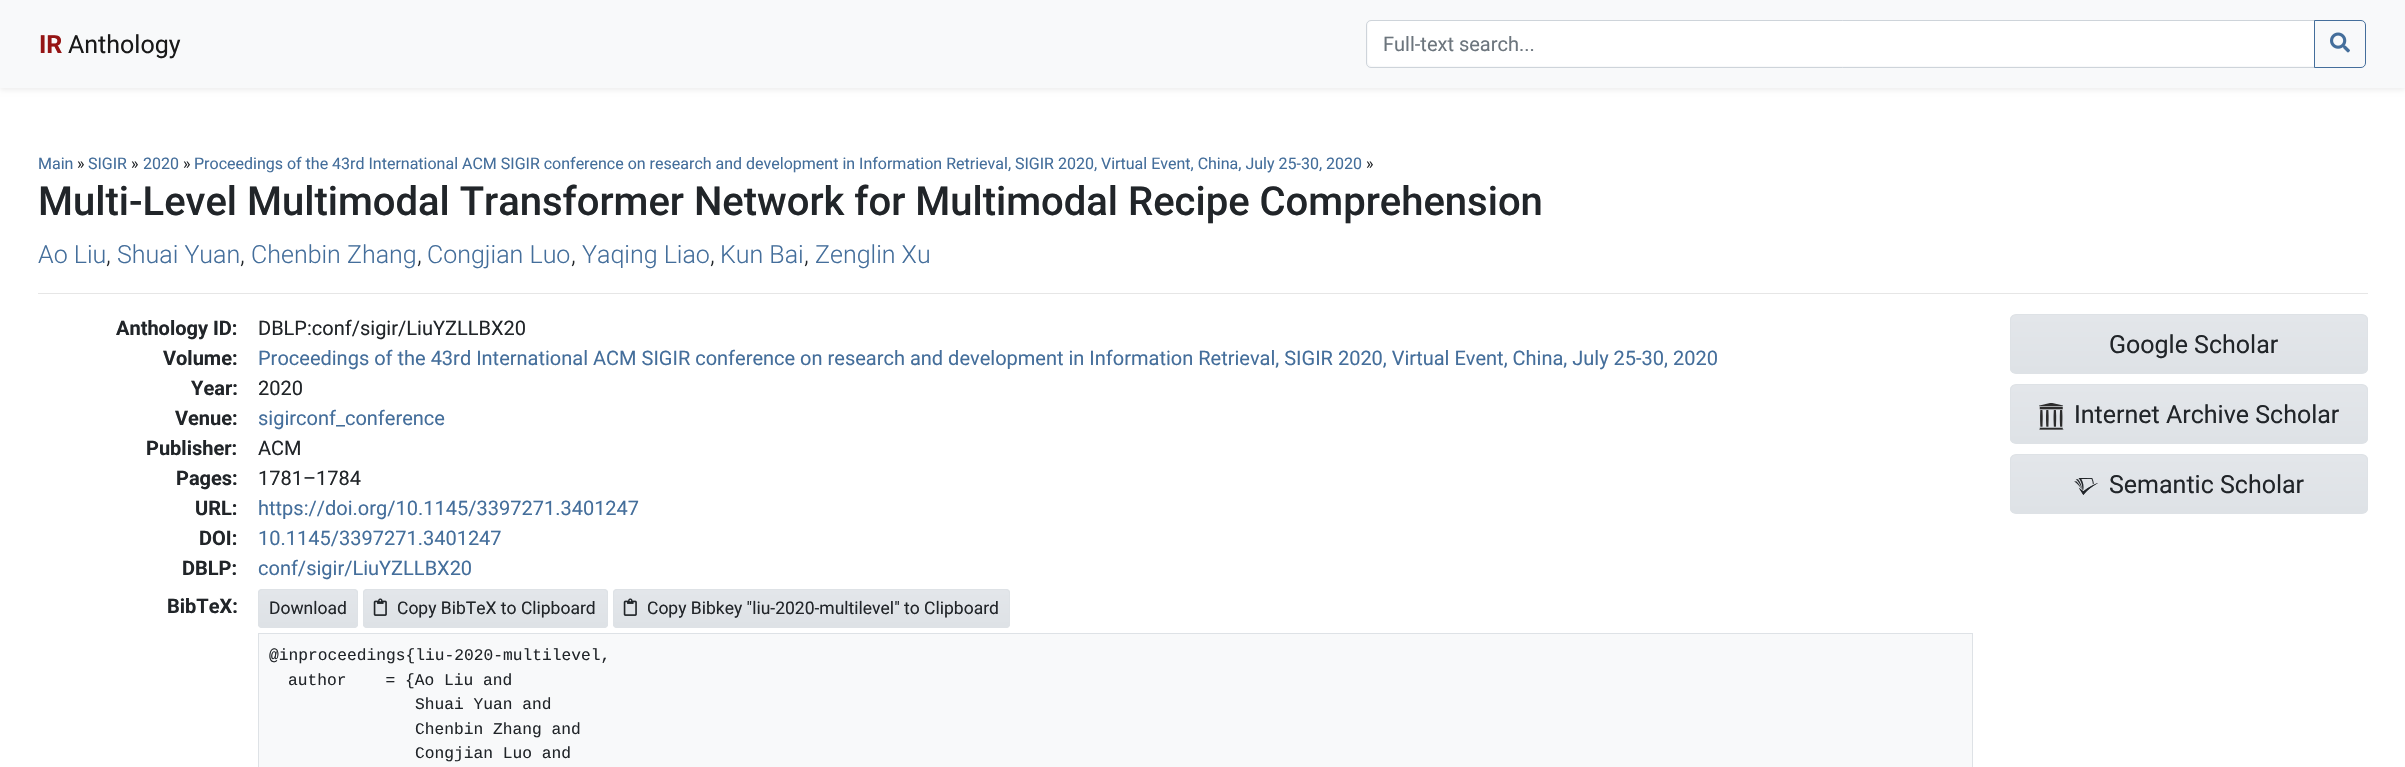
#include "include/core/SkBlurTypes.h"
#include "include/core/SkCanvas.h"
#include "include/core/SkData.h"
#include "include/core/SkFont.h"
#include "include/core/SkFontMgr.h"
#include "include/core/SkImage.h"
#include "include/core/SkMaskFilter.h"
#include "include/core/SkPaint.h"
#include "include/core/SkPathBuilder.h"
#include "include/core/SkTextBlob.h"
#include "include/effects/SkDashPathEffect.h"
#include "include/effects/SkGradientShader.h"
#include "include/utils/SkParsePath.h"

extern sk_sp<SkFontMgr> fontMgr;

void draw(SkCanvas* canvas) {
  SkPaint p;
  p.setAntiAlias(true);
  canvas->clear(SK_ColorWHITE);
  p.setColor(SkColorSetARGB(18, 0, 0, 0));
  p.setMaskFilter(SkMaskFilter::MakeBlur(kNormal_SkBlurStyle, 2.5f));
  canvas->drawRect(SkRect::MakeLTRB(0, 3, 2405, 90), p);
  p.setMaskFilter(nullptr);
  p.setColor(SkColorSetRGB(248, 249, 250));
  canvas->drawRect(SkRect::MakeLTRB(0, 0, 2405, 88), p);
  p.setColor(SK_ColorWHITE);
  canvas->drawPath(SkPathBuilder().moveTo(1372, 21).lineTo(2314, 21).lineTo(2314, 66).lineTo(1372, 66).cubicTo(1370, 66, 1368, 64, 1368, 62).lineTo(1368, 25).cubicTo(1368, 23, 1370, 21, 1372, 21).close().detach(), p);
  p.setStyle(SkPaint::kStroke_Style);
  p.setStrokeWidth(1);
  p.setColor(SkColorSetRGB(206, 212, 218));
  canvas->drawPath(SkPathBuilder().moveTo(1371, 20.5f).lineTo(2314.5f, 20.5f).lineTo(2314.5f, 67.5f).lineTo(1371, 67.5f).cubicTo(1368.5f, 67.5f, 1366.5f, 65.5f, 1366.5f, 63).lineTo(1366.5f, 25).cubicTo(1366.5f, 22.5f, 1368.5f, 20.5f, 1371, 20.5f).close().detach(), p);
  p.setColor(SkColorSetRGB(68, 110, 155));
  canvas->drawPath(SkPathBuilder().moveTo(2314.5f, 20.5f).lineTo(2361, 20.5f).cubicTo(2363.5f, 20.5f, 2365.5f, 22.5f, 2365.5f, 25).lineTo(2365.5f, 63).cubicTo(2365.5f, 65.5f, 2363.5f, 67.5f, 2361, 67.5f).lineTo(2314.5f, 67.5f).close().detach(), p);
  canvas->drawImageRect(SkImages::DeferredFromEncodedData(SkData::MakeFromFileName("images/1.png")), SkRect::MakeLTRB(2330, 32, 2350, 53), SkSamplingOptions());
  p.setStyle(SkPaint::kFill_Style);
  p.setColor(SkColorSetRGB(230, 230, 230));
  canvas->drawRect(SkRect::MakeLTRB(38, 293, 2368, 294), p);
  p.setColor(SkColorSetRGB(222, 226, 230));
  canvas->drawRoundRect(SkRect::MakeLTRB(258, 589, 358, 628), 4, 4, p);
  canvas->save();
  canvas->clipPath(SkPathBuilder().moveTo(262, 589).lineTo(354, 589).cubicTo(356, 589, 358, 591, 358, 593).lineTo(358, 624).cubicTo(358, 626, 356, 628, 354, 628).lineTo(262, 628).cubicTo(260, 628, 258, 626, 258, 624).lineTo(258, 593).cubicTo(258, 591, 260, 589, 262, 589).close().detach(), true);
  {
    const SkColor colors[] = {SkColorSetRGB(227, 230, 234), SkColorSetRGB(222, 226, 230)};
    const float stops[] = {0, 1};
    const SkPoint ends[] = {{308, 590}, {308, 626}};
    p.setShader(SkGradientShader::MakeLinear(ends, colors, stops, 2, SkTileMode::kClamp));
    p.setAlpha(255);
  }
  canvas->drawRect(SkRect::MakeLTRB(258, 590, 358, 626), p);
  canvas->restore();
  p.setStyle(SkPaint::kStroke_Style);
  p.setShader(nullptr);
  p.setColor(SkColorSetRGB(222, 226, 230));
  canvas->drawRoundRect(SkRect::MakeLTRB(258.5f, 589.5f, 357.5f, 627.5f), 3.5f, 3.5f, p);
  p.setStyle(SkPaint::kFill_Style);
  canvas->drawRoundRect(SkRect::MakeLTRB(363, 589, 608, 628), 4, 4, p);
  canvas->save();
  canvas->clipPath(SkPathBuilder().moveTo(367, 589).lineTo(604, 589).cubicTo(606, 589, 608, 591, 608, 593).lineTo(608, 624).cubicTo(608, 626, 606, 628, 604, 628).lineTo(367, 628).cubicTo(365, 628, 363, 626, 363, 624).lineTo(363, 593).cubicTo(363, 591, 365, 589, 367, 589).close().detach(), true);
  {
    const SkColor colors[] = {SkColorSetRGB(227, 230, 234), SkColorSetRGB(222, 226, 230)};
    const float stops[] = {0, 1};
    const SkPoint ends[] = {{485, 590}, {485, 626}};
    p.setShader(SkGradientShader::MakeLinear(ends, colors, stops, 2, SkTileMode::kClamp));
    p.setAlpha(255);
  }
  canvas->drawRect(SkRect::MakeLTRB(363, 590, 608, 626), p);
  canvas->restore();
  p.setStyle(SkPaint::kStroke_Style);
  p.setShader(nullptr);
  p.setColor(SkColorSetRGB(222, 226, 230));
  canvas->drawRoundRect(SkRect::MakeLTRB(363.5f, 589.5f, 607.5f, 627.5f), 3.5f, 3.5f, p);
  canvas->drawImageRect(SkImages::DeferredFromEncodedData(SkData::MakeFromFileName("images/2.png")), SkRect::MakeLTRB(373, 598, 387, 616), SkSamplingOptions());
  p.setStyle(SkPaint::kFill_Style);
  canvas->drawRoundRect(SkRect::MakeLTRB(613, 589, 1010, 628), 4, 4, p);
  canvas->save();
  canvas->clipPath(SkPathBuilder().moveTo(617, 589).lineTo(1006, 589).cubicTo(1008, 589, 1010, 591, 1010, 593).lineTo(1010, 624).cubicTo(1010, 626, 1008, 628, 1006, 628).lineTo(617, 628).cubicTo(615, 628, 613, 626, 613, 624).lineTo(613, 593).cubicTo(613, 591, 615, 589, 617, 589).close().detach(), true);
  {
    const SkColor colors[] = {SkColorSetRGB(227, 230, 234), SkColorSetRGB(222, 226, 230)};
    const float stops[] = {0, 1};
    const SkPoint ends[] = {{811, 590}, {811, 626}};
    p.setShader(SkGradientShader::MakeLinear(ends, colors, stops, 2, SkTileMode::kClamp));
    p.setAlpha(255);
  }
  canvas->drawRect(SkRect::MakeLTRB(613, 590, 1010, 626), p);
  canvas->restore();
  p.setStyle(SkPaint::kStroke_Style);
  p.setShader(nullptr);
  p.setColor(SkColorSetRGB(222, 226, 230));
  canvas->drawRoundRect(SkRect::MakeLTRB(613.5f, 589.5f, 1009.5f, 627.5f), 3.5f, 3.5f, p);
  canvas->drawImageRect(SkImages::DeferredFromEncodedData(SkData::MakeFromFileName("images/2.png")), SkRect::MakeLTRB(623, 598, 637, 616), SkSamplingOptions());
  p.setStyle(SkPaint::kFill_Style);
  p.setColor(SkColorSetRGB(248, 249, 250));
  canvas->drawRect(SkRect::MakeLTRB(258.5f, 633.5f, 1972.5f, 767.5f), p);
  p.setStyle(SkPaint::kStroke_Style);
  p.setColor(SkColorSetRGB(222, 226, 230));
  canvas->drawRect(SkRect::MakeLTRB(258.5f, 633.5f, 1972.5f, 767.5f), p);
  canvas->save();
  canvas->clipPath(SkPathBuilder().moveTo(2016, 314).lineTo(2362, 314).cubicTo(2365.5f, 314, 2368, 316.5f, 2368, 320).lineTo(2368, 368).cubicTo(2368, 371.5f, 2365.5f, 374, 2362, 374).lineTo(2016, 374).cubicTo(2012.5f, 374, 2010, 371.5f, 2010, 368).lineTo(2010, 320).cubicTo(2010, 316.5f, 2012.5f, 314, 2016, 314).close().detach(), true);
  p.setStyle(SkPaint::kFill_Style);
  {
    const SkColor colors[] = {SkColorSetRGB(227, 230, 234), SkColorSetRGB(222, 226, 230)};
    const float stops[] = {0, 1};
    const SkPoint ends[] = {{2189, 315}, {2189, 373}};
    p.setShader(SkGradientShader::MakeLinear(ends, colors, stops, 2, SkTileMode::kClamp));
    p.setAlpha(255);
  }
  canvas->drawRect(SkRect::MakeLTRB(2010, 315, 2368, 373), p);
  canvas->restore();
  p.setStyle(SkPaint::kStroke_Style);
  p.setShader(nullptr);
  p.setColor(SkColorSetRGB(222, 226, 230));
  canvas->drawRoundRect(SkRect::MakeLTRB(2010.5f, 314.5f, 2367.5f, 373.5f), 5.5f, 5.5f, p);
  canvas->save();
  canvas->clipPath(SkPathBuilder().moveTo(2016, 384).lineTo(2362, 384).cubicTo(2365.5f, 384, 2368, 386.5f, 2368, 390).lineTo(2368, 438).cubicTo(2368, 441.5f, 2365.5f, 444, 2362, 444).lineTo(2016, 444).cubicTo(2012.5f, 444, 2010, 441.5f, 2010, 438).lineTo(2010, 390).cubicTo(2010, 386.5f, 2012.5f, 384, 2016, 384).close().detach(), true);
  p.setStyle(SkPaint::kFill_Style);
  {
    const SkColor colors[] = {SkColorSetRGB(227, 230, 234), SkColorSetRGB(222, 226, 230)};
    const float stops[] = {0, 1};
    const SkPoint ends[] = {{2189, 385}, {2189, 443}};
    p.setShader(SkGradientShader::MakeLinear(ends, colors, stops, 2, SkTileMode::kClamp));
    p.setAlpha(255);
  }
  canvas->drawRect(SkRect::MakeLTRB(2010, 385, 2368, 443), p);
  canvas->restore();
  p.setStyle(SkPaint::kStroke_Style);
  p.setShader(nullptr);
  p.setColor(SkColorSetRGB(222, 226, 230));
  canvas->drawRoundRect(SkRect::MakeLTRB(2010.5f, 384.5f, 2367.5f, 443.5f), 5.5f, 5.5f, p);
  canvas->drawImageRect(SkImages::DeferredFromEncodedData(SkData::MakeFromFileName("images/3.png")), SkRect::MakeLTRB(2039, 403, 2064, 430), SkSamplingOptions());
  canvas->save();
  canvas->clipPath(SkPathBuilder().moveTo(2016, 454).lineTo(2362, 454).cubicTo(2365.5f, 454, 2368, 456.5f, 2368, 460).lineTo(2368, 508).cubicTo(2368, 511.5f, 2365.5f, 514, 2362, 514).lineTo(2016, 514).cubicTo(2012.5f, 514, 2010, 511.5f, 2010, 508).lineTo(2010, 460).cubicTo(2010, 456.5f, 2012.5f, 454, 2016, 454).close().detach(), true);
  p.setStyle(SkPaint::kFill_Style);
  {
    const SkColor colors[] = {SkColorSetRGB(227, 230, 234), SkColorSetRGB(222, 226, 230)};
    const float stops[] = {0, 1};
    const SkPoint ends[] = {{2189, 455}, {2189, 513}};
    p.setShader(SkGradientShader::MakeLinear(ends, colors, stops, 2, SkTileMode::kClamp));
    p.setAlpha(255);
  }
  canvas->drawRect(SkRect::MakeLTRB(2010, 455, 2368, 513), p);
  canvas->restore();
  p.setStyle(SkPaint::kStroke_Style);
  p.setShader(nullptr);
  p.setColor(SkColorSetRGB(222, 226, 230));
  canvas->drawRoundRect(SkRect::MakeLTRB(2010.5f, 454.5f, 2367.5f, 513.5f), 5.5f, 5.5f, p);
  canvas->drawImageRect(SkImages::DeferredFromEncodedData(SkData::MakeFromFileName("images/4.png")), SkRect::MakeLTRB(2074, 478, 2098, 495), SkSamplingOptions());
  SkFont font1(fontMgr->matchFamilyStyle("Roboto", SkFontStyle::Bold()), 25);
  font1.setSubpixel(true);
  p.setStyle(SkPaint::kFill_Style);
  p.setColor(SkColorSetRGB(149, 21, 21));
  canvas->drawString("IR", 39, 53, font1, p);
  SkFont font2(fontMgr->matchFamilyStyle("Roboto", SkFontStyle::Normal()), 25);
  font2.setSubpixel(true);
  p.setColor(SkColorSetRGB(25, 25, 25));
  canvas->drawString("Anthology", 68, 53, font2, p);
  SkFont font3(fontMgr->matchFamilyStyle("Roboto", SkFontStyle::Normal()), 20);
  font3.setSubpixel(true);
  p.setColor(SkColorSetRGB(108, 117, 125));
  canvas->drawString("Full-text search...", 1383, 51, font3, p);
  SkFont font4(fontMgr->matchFamilyStyle("Roboto", SkFontStyle::Normal()), 16);
  font4.setSubpixel(true);
  p.setColor(SkColorSetRGB(68, 110, 155));
  canvas->drawString("Main", 38, 169, font4, p);
  p.setColor(SkColorSetRGB(33, 37, 41));
  canvas->drawString("»", 77, 169, font4, p);
  p.setColor(SkColorSetRGB(68, 110, 155));
  canvas->drawString("SIGIR", 88, 169, font4, p);
  p.setColor(SkColorSetRGB(33, 37, 41));
  canvas->drawString("»", 131, 169, font4, p);
  p.setColor(SkColorSetRGB(68, 110, 155));
  canvas->drawString("2020", 143, 169, font4, p);
  p.setColor(SkColorSetRGB(33, 37, 41));
  canvas->drawString("»", 183, 169, font4, p);
  p.setColor(SkColorSetRGB(68, 110, 155));
  canvas->drawString("Proceedings of the 43rd International ACM SIGIR conference on research and development in Information Retrieval, SIGIR 2020, Virtual Event, China, July 25-30, 2020", 194, 169, font4, p);
  p.setColor(SkColorSetRGB(33, 37, 41));
  canvas->drawString("»", 1366, 169, font4, p);
  SkFont font5(fontMgr->matchFamilyStyle("Roboto", SkFontStyle(500, SkFontStyle::kNormal_Width, SkFontStyle::kUpright_Slant)), 40);
  font5.setSubpixel(true);
  canvas->drawString("Multi-Level Multimodal Transformer Network for Multimodal Recipe Comprehension", 38, 215, font5, p);
  SkFont font6(fontMgr->matchFamilyStyle("Roboto", SkFontStyle(300, SkFontStyle::kNormal_Width, SkFontStyle::kUpright_Slant)), 25);
  font6.setSubpixel(true);
  p.setColor(SkColorSetRGB(68, 110, 155));
  canvas->drawString("Ao Liu", 38, 263, font6, p);
  p.setColor(SkColorSetRGB(33, 37, 41));
  canvas->drawString(",", 106, 263, font6, p);
  p.setColor(SkColorSetRGB(68, 110, 155));
  canvas->drawString("Shuai Yuan", 117, 263, font6, p);
  p.setColor(SkColorSetRGB(33, 37, 41));
  canvas->drawString(",", 240, 263, font6, p);
  p.setColor(SkColorSetRGB(68, 110, 155));
  canvas->drawString("Chenbin Zhang", 251, 263, font6, p);
  p.setColor(SkColorSetRGB(33, 37, 41));
  canvas->drawString(",", 417, 263, font6, p);
  p.setColor(SkColorSetRGB(68, 110, 155));
  canvas->drawString("Congjian Luo", 427, 263, font6, p);
  p.setColor(SkColorSetRGB(33, 37, 41));
  canvas->drawString(",", 571, 263, font6, p);
  p.setColor(SkColorSetRGB(68, 110, 155));
  canvas->drawString("Yaqing Liao", 582, 263, font6, p);
  p.setColor(SkColorSetRGB(33, 37, 41));
  canvas->drawString(",", 710, 263, font6, p);
  p.setColor(SkColorSetRGB(68, 110, 155));
  canvas->drawString("Kun Bai", 720, 263, font6, p);
  p.setColor(SkColorSetRGB(33, 37, 41));
  canvas->drawString(",", 804, 263, font6, p);
  p.setColor(SkColorSetRGB(68, 110, 155));
  canvas->drawString("Zenglin Xu", 815, 263, font6, p);
  SkFont font7(fontMgr->matchFamilyStyle("Roboto", SkFontStyle::Bold()), 20);
  font7.setSubpixel(true);
  p.setColor(SkColorSetRGB(33, 37, 41));
  canvas->drawString("Anthology ID:", 116, 335, font7, p);
  canvas->drawString("DBLP:conf/sigir/LiuYZLLBX20", 258, 335, font3, p);
  canvas->drawString("Volume:", 163, 365, font7, p);
  p.setColor(SkColorSetRGB(68, 110, 155));
  canvas->drawString("Proceedings of the 43rd International ACM SIGIR conference on research and development in Information Retrieval, SIGIR 2020, Virtual Event, China, July 25-30, 2020", 258, 365, font3, p);
  p.setColor(SkColorSetRGB(33, 37, 41));
  canvas->drawString("Year:", 191, 395, font7, p);
  canvas->drawString("2020", 258, 395, font3, p);
  canvas->drawString("Venue:", 175, 425, font7, p);
  p.setColor(SkColorSetRGB(68, 110, 155));
  canvas->drawString("sigirconf_conference", 258, 425, font3, p);
  p.setColor(SkColorSetRGB(33, 37, 41));
  canvas->drawString("Publisher:", 146, 455, font7, p);
  canvas->drawString("ACM", 258, 455, font3, p);
  canvas->drawString("Pages:", 176, 485, font7, p);
  canvas->drawString("1781–1784", 258, 485, font3, p);
  canvas->drawString("URL:", 195, 515, font7, p);
  p.setColor(SkColorSetRGB(68, 110, 155));
  canvas->drawString("https://doi.org/10.1145/3397271.3401247", 258, 515, font3, p);
  p.setColor(SkColorSetRGB(33, 37, 41));
  canvas->drawString("DOI:", 199, 545, font7, p);
  p.setColor(SkColorSetRGB(68, 110, 155));
  canvas->drawString("10.1145/3397271.3401247", 258, 545, font3, p);
  p.setColor(SkColorSetRGB(33, 37, 41));
  canvas->drawString("DBLP:", 182, 575, font7, p);
  p.setColor(SkColorSetRGB(68, 110, 155));
  canvas->drawString("conf/sigir/LiuYZLLBX20", 258, 575, font3, p);
  p.setColor(SkColorSetRGB(33, 37, 41));
  canvas->drawString("BibTeX:", 167, 613, font7, p);
  SkFont font8(fontMgr->matchFamilyStyle("Roboto", SkFontStyle::Normal()), 17.5f);
  font8.setSubpixel(true);
  canvas->drawString("Download", 269, 614, font8, p);
  canvas->drawString("Copy BibTeX to Clipboard", 397, 614, font8, p);
  canvas->drawString("Copy Bibkey \"liu-2020-multilevel\" to Clipboard", 647, 614, font8, p);
  SkFont font9(fontMgr->matchFamilyStyle("Liberation Mono", SkFontStyle::Normal()), 16.25f);
  font9.setSubpixel(true);
  canvas->drawString("@inproceedings{liu-2020-multilevel,", 269, 660, font9, p);
  canvas->drawString("author    = {Ao Liu and", 288, 685, font9, p);
  canvas->drawString("Shuai Yuan and", 415, 709, font9, p);
  canvas->drawString("Chenbin Zhang and", 415, 734, font9, p);
  canvas->drawString("Congjian Luo and", 415, 758, font9, p);
  canvas->drawString("Google Scholar", 2109, 353, font2, p);
  canvas->drawString("Internet Archive Scholar", 2074, 423, font2, p);
  canvas->drawString("Semantic Scholar", 2109, 493, font2, p);
}
